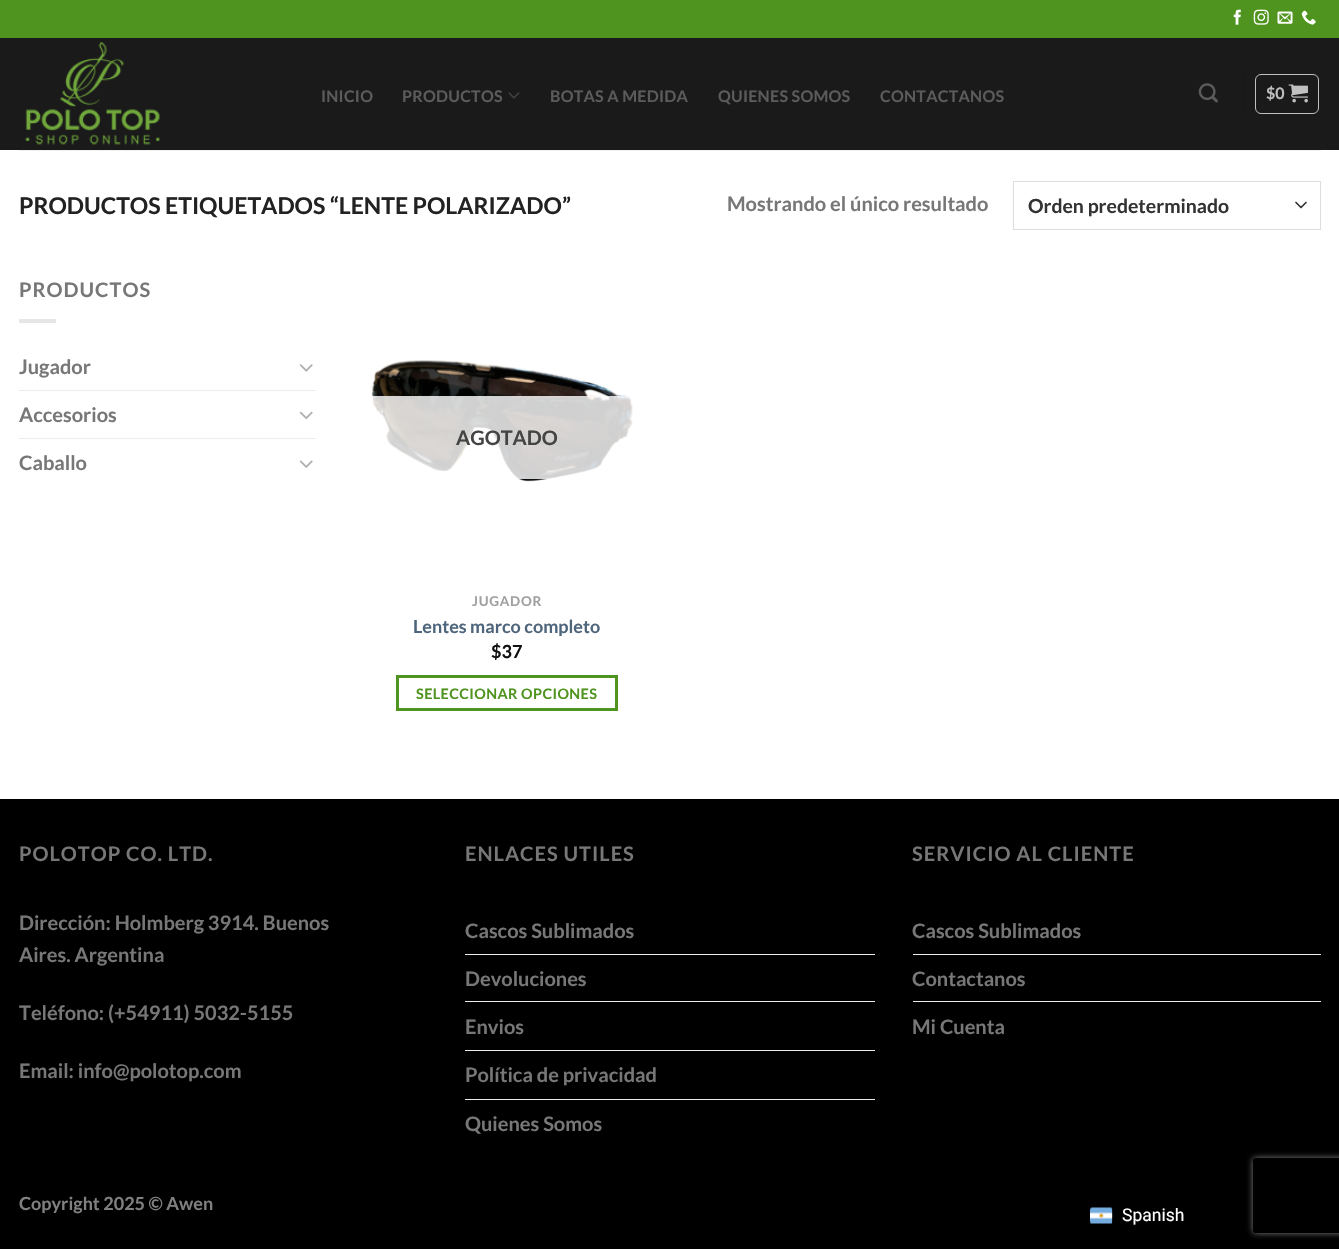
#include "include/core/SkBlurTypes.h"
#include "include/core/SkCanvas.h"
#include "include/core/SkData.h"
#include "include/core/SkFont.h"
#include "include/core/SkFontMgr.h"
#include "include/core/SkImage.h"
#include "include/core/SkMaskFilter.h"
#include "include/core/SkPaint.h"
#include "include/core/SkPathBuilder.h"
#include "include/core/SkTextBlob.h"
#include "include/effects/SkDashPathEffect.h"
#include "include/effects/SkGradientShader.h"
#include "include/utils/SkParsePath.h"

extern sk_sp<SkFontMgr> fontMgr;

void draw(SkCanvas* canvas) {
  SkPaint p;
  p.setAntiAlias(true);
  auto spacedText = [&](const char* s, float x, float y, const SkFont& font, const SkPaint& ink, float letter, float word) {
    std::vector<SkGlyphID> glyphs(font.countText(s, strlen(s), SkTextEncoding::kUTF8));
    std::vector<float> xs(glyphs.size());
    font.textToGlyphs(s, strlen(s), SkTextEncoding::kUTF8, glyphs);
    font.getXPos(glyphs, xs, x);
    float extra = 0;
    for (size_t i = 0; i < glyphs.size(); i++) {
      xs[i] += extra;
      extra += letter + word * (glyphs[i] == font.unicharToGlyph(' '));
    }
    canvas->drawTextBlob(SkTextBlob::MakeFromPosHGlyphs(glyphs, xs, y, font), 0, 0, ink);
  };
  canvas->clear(SK_ColorBLACK);
  p.setColor(SK_ColorWHITE);
  canvas->drawRect(SkRect::MakeLTRB(0, 150, 1339, 799), p);
  p.setColor(SkColorSetRGB(79, 148, 30));
  canvas->drawRect(SkRect::MakeLTRB(0, 0, 1339, 38), p);
  canvas->drawImageRect(SkImages::DeferredFromEncodedData(SkData::MakeFromFileName("images/1.png")), SkRect::MakeLTRB(1233, 9, 1241, 25), SkSamplingOptions());
  canvas->drawImageRect(SkImages::DeferredFromEncodedData(SkData::MakeFromFileName("images/2.png")), SkRect::MakeLTRB(1253, 9, 1269, 25), SkSamplingOptions());
  canvas->drawImageRect(SkImages::DeferredFromEncodedData(SkData::MakeFromFileName("images/3.png")), SkRect::MakeLTRB(1277, 11, 1293, 24), SkSamplingOptions());
  canvas->drawImageRect(SkImages::DeferredFromEncodedData(SkData::MakeFromFileName("images/4.png")), SkRect::MakeLTRB(1301, 10, 1316, 25), SkSamplingOptions());
  p.setColor(SkColorSetRGB(26, 26, 26));
  canvas->drawRect(SkRect::MakeLTRB(0, 38, 1339, 150), p);
  canvas->drawImageRect(SkImages::DeferredFromEncodedData(SkData::MakeFromFileName("images/5.png")), SkRect::MakeLTRB(25, 42, 160, 145), SkSamplingOptions());
  canvas->drawImageRect(SkImages::DeferredFromEncodedData(SkData::MakeFromFileName("images/6.png")), SkRect::MakeLTRB(508, 92, 520, 99), SkSamplingOptions());
  canvas->drawImageRect(SkImages::DeferredFromEncodedData(SkData::MakeFromFileName("images/7.png")), SkRect::MakeLTRB(1198, 83, 1218, 103), SkSamplingOptions());
  p.setColor(SkColorSetRGB(23, 23, 23));
  canvas->drawRect(SkRect::MakeLTRB(1243, 75, 1244, 113), p);
  p.setStyle(SkPaint::kStroke_Style);
  p.setStrokeWidth(1);
  p.setColor(SkColorSetRGB(192, 192, 192));
  canvas->drawRoundRect(SkRect::MakeLTRB(1255.5f, 74.5f, 1318.5f, 113.5f), 5.5f, 5.5f, p);
  canvas->drawImageRect(SkImages::DeferredFromEncodedData(SkData::MakeFromFileName("images/8.png")), SkRect::MakeLTRB(1288, 84, 1308, 103), SkSamplingOptions());
  p.setStyle(SkPaint::kFill_Style);
  p.setColor(SkColorSetRGB(241, 241, 241));
  canvas->drawRect(SkRect::MakeLTRB(19, 150, 1321, 151), p);
  p.setStyle(SkPaint::kStroke_Style);
  p.setStrokeWidth(1.7f);
  p.setStrokeCap(SkPaint::kRound_Cap);
  p.setStrokeJoin(SkPaint::kRound_Join);
  p.setColor(SkColorSetRGB(51, 51, 51));
  canvas->drawPath(SkPathBuilder().moveTo(1296, 202.5f).lineTo(1301, 207.5f).lineTo(1306, 202.5f).detach(), p);
  p.setStrokeWidth(1);
  p.setStrokeCap(SkPaint::kButt_Cap);
  p.setStrokeJoin(SkPaint::kMiter_Join);
  p.setColor(SkColorSetRGB(221, 221, 221));
  canvas->drawRect(SkRect::MakeLTRB(1013.5f, 181.5f, 1320.5f, 229.5f), p);
  p.setStyle(SkPaint::kFill_Style);
  p.setColor(SkColorSetRGB(230, 230, 230));
  canvas->drawRect(SkRect::MakeLTRB(19, 319, 56, 323), p);
  canvas->drawImageRect(SkImages::DeferredFromEncodedData(SkData::MakeFromFileName("images/9.png")), SkRect::MakeLTRB(299, 364, 313, 372), SkSamplingOptions());
  p.setColor(SkColorSetRGB(236, 236, 236));
  canvas->drawRect(SkRect::MakeLTRB(19, 390, 316, 391), p);
  canvas->drawImageRect(SkImages::DeferredFromEncodedData(SkData::MakeFromFileName("images/10.png")), SkRect::MakeLTRB(299, 411, 313, 420), SkSamplingOptions());
  canvas->drawRect(SkRect::MakeLTRB(19, 438, 316, 439), p);
  canvas->drawImageRect(SkImages::DeferredFromEncodedData(SkData::MakeFromFileName("images/11.png")), SkRect::MakeLTRB(299, 460, 313, 468), SkSamplingOptions());
  canvas->drawImageRect(SkImages::DeferredFromEncodedData(SkData::MakeFromFileName("images/12.png")), SkRect::MakeLTRB(371, 360, 633, 482), SkSamplingOptions());
  p.setColor(SkColorSetARGB(207, 255, 255, 255));
  canvas->drawRect(SkRect::MakeLTRB(372, 396, 633, 479), p);
  p.setStyle(SkPaint::kStroke_Style);
  p.setStrokeWidth(3);
  p.setColor(SkColorSetRGB(79, 148, 30));
  canvas->drawRect(SkRect::MakeLTRB(397.5f, 676.5f, 616.5f, 709.5f), p);
  p.setStyle(SkPaint::kFill_Style);
  p.setColor(SkColorSetRGB(236, 236, 236));
  canvas->drawRect(SkRect::MakeLTRB(465, 954, 875, 955), p);
  canvas->drawRect(SkRect::MakeLTRB(465, 1001, 875, 1002), p);
  canvas->drawRect(SkRect::MakeLTRB(465, 1050, 875, 1051), p);
  canvas->drawRect(SkRect::MakeLTRB(465, 1099, 875, 1100), p);
  canvas->drawRect(SkRect::MakeLTRB(913, 954, 1321, 955), p);
  canvas->drawRect(SkRect::MakeLTRB(913, 1001, 1321, 1002), p);
  canvas->save();
  canvas->clipPath(SkPathBuilder(SkPathFillType::kEvenOdd).moveTo(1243, 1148).lineTo(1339, 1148).lineTo(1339, 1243).lineTo(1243, 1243).close().moveTo(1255.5f, 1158).lineTo(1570.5f, 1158).cubicTo(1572, 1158, 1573, 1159, 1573, 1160.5f).lineTo(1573, 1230.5f).cubicTo(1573, 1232, 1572, 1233, 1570.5f, 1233).lineTo(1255.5f, 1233).cubicTo(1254, 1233, 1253, 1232, 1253, 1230.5f).lineTo(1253, 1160.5f).cubicTo(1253, 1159, 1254, 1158, 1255.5f, 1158).close().detach(), true);
  p.setColor(SkColorSetRGB(128, 128, 128));
  p.setMaskFilter(SkMaskFilter::MakeBlur(kNormal_SkBlurStyle, 3));
  canvas->drawRoundRect(SkRect::MakeLTRB(1253, 1158, 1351, 1233), 2.5f, 2.5f, p);
  p.setMaskFilter(nullptr);
  canvas->restore();
  canvas->drawImageRect(SkImages::DeferredFromEncodedData(SkData::MakeFromFileName("images/13.png")), SkRect::MakeLTRB(1090, 1207, 1113, 1224), SkSamplingOptions());
  SkFont font1(fontMgr->matchFamilyStyle("Lato", SkFontStyle::Bold()), 16);
  font1.setSubpixel(true);
  p.setColor(SkColorSetRGB(91, 91, 91));
  spacedText("INICIO", 321, 102, font1, p, 0.25f, 0);
  spacedText("PRODUCTOS", 402, 102, font1, p, 0.25f, 0);
  spacedText("BOTAS A MEDIDA", 550, 102, font1, p, 0.25f, 0);
  spacedText("QUIENES SOMOS", 718, 102, font1, p, 0.25f, 0);
  spacedText("CONTACTANOS", 880, 102, font1, p, 0.25f, 0);
  p.setColor(SkColorSetRGB(192, 192, 192));
  canvas->drawString("$0", 1266, 99, font1, p);
  SkFont font2(fontMgr->matchFamilyStyle("Lato", SkFontStyle::Bold()), 23);
  font2.setSubpixel(true);
  p.setColor(SkColorSetRGB(34, 34, 34));
  canvas->drawString("PRODUCTOS ETIQUETADOS “LENTE POLARIZADO”", 19, 214, font2, p);
  SkFont font3(fontMgr->matchFamilyStyle("Lato", SkFontStyle::Bold()), 20);
  font3.setSubpixel(true);
  p.setColor(SkColorSetRGB(119, 119, 119));
  canvas->drawString("Mostrando el único resultado", 727, 211, font3, p);
  SkFont font4(fontMgr->matchFamilyStyle("Lato", SkFontStyle::Bold()), 19.4f);
  font4.setSubpixel(true);
  p.setColor(SkColorSetRGB(51, 51, 51));
  canvas->drawString("Orden predeterminado", 1028, 213, font4, p);
  p.setColor(SkColorSetRGB(119, 119, 119));
  spacedText("PRODUCTOS", 19, 297, font3, p, 1, 0);
  canvas->drawString("Jugador", 19, 374, font3, p);
  canvas->drawString("Accesorios", 19, 422, font3, p);
  canvas->drawString("Caballo", 19, 470, font3, p);
  p.setColor(SkColorSetRGB(68, 68, 68));
  canvas->drawString("AGOTADO", 456, 445, font3, p);
  SkFont font5(fontMgr->matchFamilyStyle("Lato", SkFontStyle::Bold()), 13.5f);
  font5.setSubpixel(true);
  p.setColor(SkColorSetRGB(160, 160, 160));
  spacedText("JUGADOR", 472, 606, font5, p, 0.75f, 0);
  SkFont font6(fontMgr->matchFamilyStyle("Lato", SkFontStyle::Bold()), 18);
  font6.setSubpixel(true);
  p.setColor(SkColorSetRGB(78, 101, 123));
  canvas->drawString("Lentes marco completo", 413, 633, font6, p);
  p.setColor(SkColorSetRGB(17, 17, 17));
  canvas->drawString("$37", 491, 658, font6, p);
  SkFont font7(fontMgr->matchFamilyStyle("Lato", SkFontStyle::Bold()), 14.4f);
  font7.setSubpixel(true);
  p.setColor(SkColorSetRGB(79, 148, 30));
  spacedText("SELECCIONAR OPCIONES", 416, 699, font7, p, 0.4f, 0);
  p.setColor(SkColorSetRGB(119, 119, 119));
  spacedText("POLOTOP CO. LTD.", 19, 861, font3, p, 1, 0);
  canvas->drawString("Dirección: Holmberg 3914. Buenos", 19, 930, font3, p);
  canvas->drawString("Aires. Argentina", 19, 962, font3, p);
  canvas->drawString("Teléfono: (+54911) 5032-5155", 19, 1020, font3, p);
  canvas->drawString("Email: info@polotop.com", 19, 1078, font3, p);
  spacedText("ENLACES UTILES", 465, 861, font3, p, 1, 0);
  canvas->drawString("Cascos Sublimados", 465, 938, font3, p);
  canvas->drawString("Devoluciones", 465, 986, font3, p);
  canvas->drawString("Envios", 465, 1034, font3, p);
  canvas->drawString("Política de privacidad", 465, 1082, font3, p);
  canvas->drawString("Quienes Somos", 465, 1131, font3, p);
  spacedText("SERVICIO AL CLIENTE", 912, 861, font3, p, 1, 0);
  canvas->drawString("Cascos Sublimados", 912, 938, font3, p);
  canvas->drawString("Contactanos", 912, 986, font3, p);
  canvas->drawString("Mi Cuenta", 912, 1034, font3, p);
  p.setColor(SkColorSetRGB(128, 128, 128));
  canvas->drawString("Copyright 2025 © Awen", 19, 1210, font6, p);
  SkFont font8(fontMgr->matchFamilyStyle("Roboto", SkFontStyle::Normal()), 17.5f);
  font8.setSubpixel(true);
  p.setColor(SK_ColorWHITE);
  canvas->drawString("Spanish", 1122, 1221, font8, p);
}
